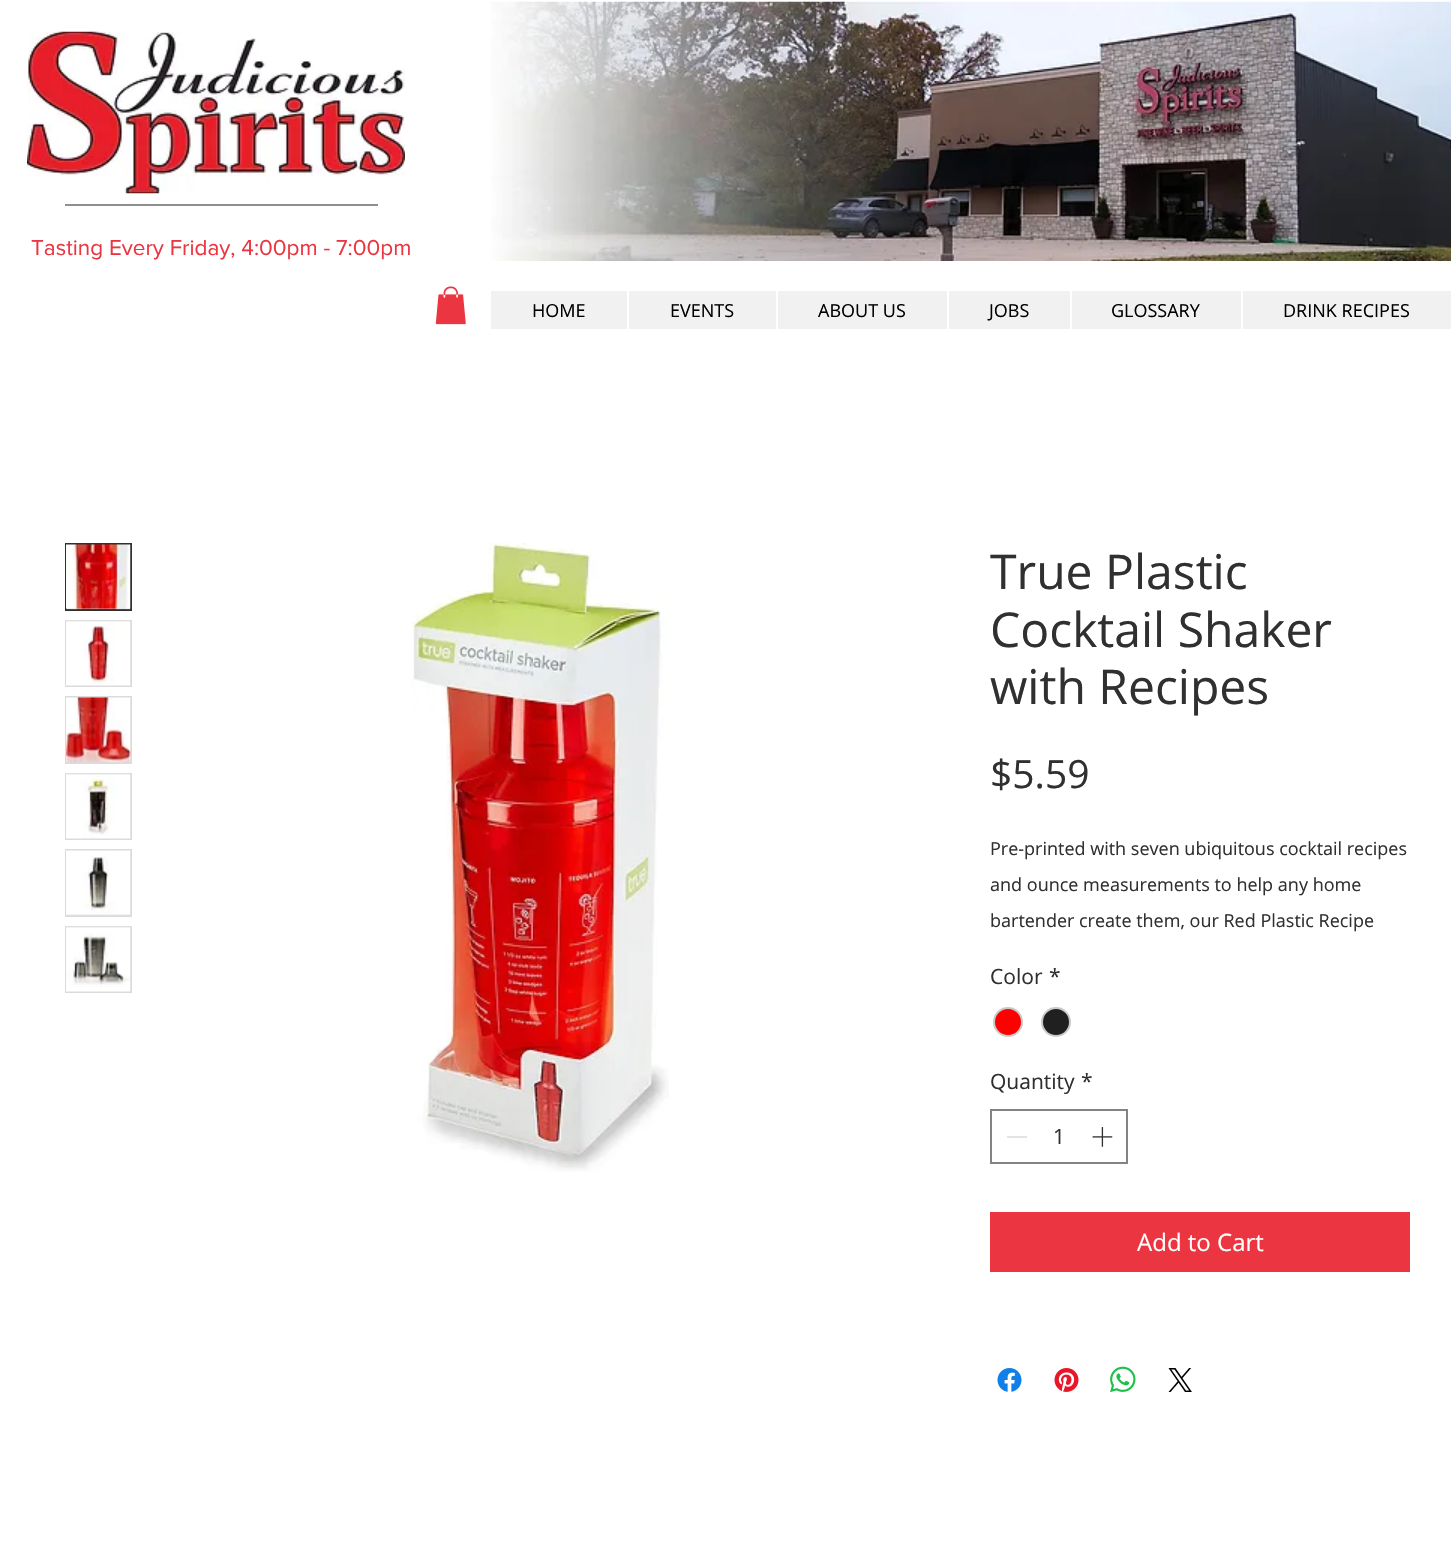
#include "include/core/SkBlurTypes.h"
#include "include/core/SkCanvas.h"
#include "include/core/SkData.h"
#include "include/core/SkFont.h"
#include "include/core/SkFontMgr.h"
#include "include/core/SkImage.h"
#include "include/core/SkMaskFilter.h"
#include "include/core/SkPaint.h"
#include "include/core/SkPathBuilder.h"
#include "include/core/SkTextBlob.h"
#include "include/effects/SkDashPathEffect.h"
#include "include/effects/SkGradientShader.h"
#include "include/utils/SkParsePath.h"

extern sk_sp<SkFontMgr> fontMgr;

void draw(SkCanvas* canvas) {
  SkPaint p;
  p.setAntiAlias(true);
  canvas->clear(SK_ColorWHITE);
  canvas->drawImageRect(SkImages::DeferredFromEncodedData(SkData::MakeFromFileName("images/1.png")), SkRect::MakeLTRB(27, 31, 405, 194), SkSamplingOptions());
  p.setColor(SkColorSetRGB(143, 143, 143));
  canvas->drawRect(SkRect::MakeLTRB(65, 204, 378, 206), p);
  canvas->drawImageRect(SkImages::DeferredFromEncodedData(SkData::MakeFromFileName("images/2.png")), SkRect::MakeLTRB(491, 1, 1451, 261), SkSamplingOptions());
  canvas->drawImageRect(SkImages::DeferredFromEncodedData(SkData::MakeFromFileName("images/3.png")), SkRect::MakeLTRB(435, 286, 466, 325), SkSamplingOptions());
  p.setColor(SkColorSetRGB(241, 241, 241));
  canvas->drawRect(SkRect::MakeLTRB(491, 291, 1451, 329), p);
  p.setColor(SK_ColorWHITE);
  canvas->drawRect(SkRect::MakeLTRB(627, 291, 629, 329), p);
  canvas->drawRect(SkRect::MakeLTRB(776, 291, 778, 329), p);
  canvas->drawRect(SkRect::MakeLTRB(947, 291, 949, 329), p);
  canvas->drawRect(SkRect::MakeLTRB(1070, 291, 1072, 329), p);
  canvas->drawRect(SkRect::MakeLTRB(1241, 291, 1243, 329), p);
  p.setColor(SkColorSetRGB(219, 219, 219));
  canvas->drawRect(SkRect::MakeLTRB(67, 608, 130, 609), p);
  p.setStyle(SkPaint::kStroke_Style);
  p.setStrokeWidth(2);
  p.setColor(SkColorSetRGB(48, 48, 48));
  canvas->drawRect(SkRect::MakeLTRB(66, 544, 131, 610), p);
  canvas->drawImageRect(SkImages::DeferredFromEncodedData(SkData::MakeFromFileName("images/4.png")), SkRect::MakeLTRB(66, 544, 131, 610), SkSamplingOptions());
  p.setStyle(SkPaint::kFill_Style);
  p.setColor(SkColorSetRGB(219, 219, 219));
  canvas->drawRect(SkRect::MakeLTRB(65, 620, 132, 687), p);
  canvas->drawImageRect(SkImages::DeferredFromEncodedData(SkData::MakeFromFileName("images/5.png")), SkRect::MakeLTRB(66, 620, 131, 686), SkSamplingOptions());
  canvas->drawRect(SkRect::MakeLTRB(65, 696, 132, 764), p);
  canvas->drawImageRect(SkImages::DeferredFromEncodedData(SkData::MakeFromFileName("images/6.png")), SkRect::MakeLTRB(66, 697, 131, 763), SkSamplingOptions());
  canvas->drawRect(SkRect::MakeLTRB(65, 773, 132, 840), p);
  canvas->drawImageRect(SkImages::DeferredFromEncodedData(SkData::MakeFromFileName("images/7.png")), SkRect::MakeLTRB(66, 773, 131, 839), SkSamplingOptions());
  canvas->drawRect(SkRect::MakeLTRB(65, 849, 132, 917), p);
  canvas->drawImageRect(SkImages::DeferredFromEncodedData(SkData::MakeFromFileName("images/8.png")), SkRect::MakeLTRB(66, 850, 131, 916), SkSamplingOptions());
  canvas->drawRect(SkRect::MakeLTRB(65, 926, 132, 993), p);
  canvas->drawImageRect(SkImages::DeferredFromEncodedData(SkData::MakeFromFileName("images/9.png")), SkRect::MakeLTRB(66, 926, 131, 992), SkSamplingOptions());
  canvas->drawImageRect(SkImages::DeferredFromEncodedData(SkData::MakeFromFileName("images/10.png")), SkRect::MakeLTRB(411, 543, 669, 1172), SkSamplingOptions());
  p.setColor(SkColorSetRGB(255, 0, 0));
  canvas->drawCircle(1008, 1022, 14, p);
  p.setStyle(SkPaint::kStroke_Style);
  p.setColor(SkColorSetRGB(201, 201, 201));
  canvas->drawCircle(1008, 1022, 14, p);
  p.setStyle(SkPaint::kFill_Style);
  p.setColor(SkColorSetRGB(32, 32, 32));
  canvas->drawCircle(1056, 1022, 14, p);
  p.setStyle(SkPaint::kStroke_Style);
  p.setColor(SkColorSetRGB(201, 201, 201));
  canvas->drawCircle(1056, 1022, 14, p);
  p.setColor(SkColorSetRGB(131, 131, 131));
  canvas->drawRect(SkRect::MakeLTRB(991, 1110, 1127, 1163), p);
  p.setStyle(SkPaint::kFill_Style);
  p.setColor(SkColorSetRGB(227, 227, 227));
  canvas->drawRect(SkRect::MakeLTRB(1007, 1136, 1027, 1138), p);
  canvas->drawImageRect(SkImages::DeferredFromEncodedData(SkData::MakeFromFileName("images/11.png")), SkRect::MakeLTRB(1092, 1127, 1113, 1147), SkSamplingOptions());
  p.setColor(SkColorSetRGB(235, 54, 65));
  canvas->drawRect(SkRect::MakeLTRB(990, 1212, 1410, 1272), p);
  canvas->drawImageRect(SkImages::DeferredFromEncodedData(SkData::MakeFromFileName("images/12.png")), SkRect::MakeLTRB(997, 1368, 1022, 1392), SkSamplingOptions());
  canvas->drawImageRect(SkImages::DeferredFromEncodedData(SkData::MakeFromFileName("images/13.png")), SkRect::MakeLTRB(1054, 1368, 1079, 1392), SkSamplingOptions());
  canvas->drawImageRect(SkImages::DeferredFromEncodedData(SkData::MakeFromFileName("images/14.png")), SkRect::MakeLTRB(1110, 1366, 1136, 1393), SkSamplingOptions());
  canvas->drawImageRect(SkImages::DeferredFromEncodedData(SkData::MakeFromFileName("images/15.png")), SkRect::MakeLTRB(1168, 1368, 1192, 1392), SkSamplingOptions());
  SkFont font1(fontMgr->matchFamilyStyle("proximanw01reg", SkFontStyle::Normal()), 22.5f);
  font1.setSubpixel(true);
  canvas->drawString("Tasting Every Friday, 4:00pm - 7:00pm", 31, 255, font1, p);
  SkFont font2(fontMgr->matchFamilyStyle("Open Sans", SkFontStyle::Normal()), 18);
  font2.setSubpixel(true);
  p.setColor(SK_ColorBLACK);
  canvas->drawString("HOME", 532, 317, font2, p);
  canvas->drawString("EVENTS", 670, 317, font2, p);
  canvas->drawString("ABOUT US", 818, 317, font2, p);
  canvas->drawString("JOBS", 989, 317, font2, p);
  canvas->drawString("GLOSSARY", 1111, 317, font2, p);
  canvas->drawString("DRINK RECIPES", 1283, 317, font2, p);
  SkFont font3(fontMgr->matchFamilyStyle("Open Sans", SkFontStyle::Normal()), 48);
  font3.setSubpixel(true);
  p.setColor(SkColorSetRGB(48, 48, 48));
  canvas->drawString("True Plastic", 990, 589, font3, p);
  canvas->drawString("Cocktail Shaker", 990, 647, font3, p);
  canvas->drawString("with Recipes", 990, 704, font3, p);
  SkFont font4(fontMgr->matchFamilyStyle("Open Sans", SkFontStyle::Normal()), 39);
  font4.setSubpixel(true);
  canvas->drawString("$5.59", 990, 788, font4, p);
  canvas->drawString("Pre-printed with seven ubiquitous cocktail recipes", 990, 855, font2, p);
  canvas->drawString("and ounce measurements to help any home", 990, 891, font2, p);
  canvas->drawString("bartender create them, our Red Plastic Recipe", 990, 927, font2, p);
  SkFont font5(fontMgr->matchFamilyStyle("Open Sans", SkFontStyle::Normal()), 21);
  font5.setSubpixel(true);
  canvas->drawString("Color", 990, 984, font5, p);
  canvas->drawString("*", 1049, 984, font5, p);
  canvas->drawString("Quantity", 990, 1089, font5, p);
  canvas->drawString("*", 1081, 1089, font5, p);
  canvas->drawString("1", 1053, 1144, font5, p);
  SkFont font6(fontMgr->matchFamilyStyle("Open Sans", SkFontStyle::Normal()), 24);
  font6.setSubpixel(true);
  p.setColor(SK_ColorWHITE);
  canvas->drawString("Add to Cart", 1137, 1251, font6, p);
}
